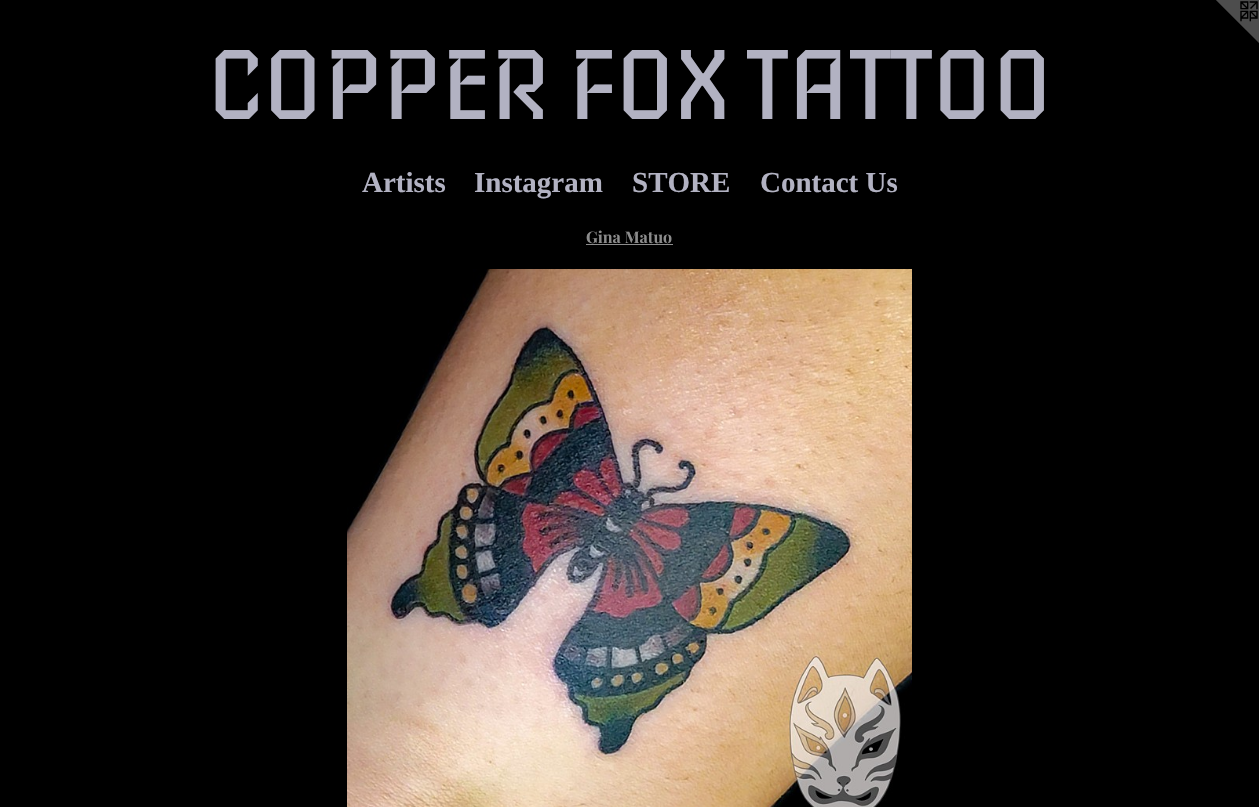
#include "include/core/SkBlurTypes.h"
#include "include/core/SkCanvas.h"
#include "include/core/SkData.h"
#include "include/core/SkFont.h"
#include "include/core/SkFontMgr.h"
#include "include/core/SkImage.h"
#include "include/core/SkMaskFilter.h"
#include "include/core/SkPaint.h"
#include "include/core/SkPathBuilder.h"
#include "include/core/SkTextBlob.h"
#include "include/effects/SkDashPathEffect.h"
#include "include/effects/SkGradientShader.h"
#include "include/utils/SkParsePath.h"

extern sk_sp<SkFontMgr> fontMgr;

void draw(SkCanvas* canvas) {
  SkPaint p;
  p.setAntiAlias(true);
  canvas->clear(SK_ColorBLACK);
  canvas->drawImageRect(SkImages::DeferredFromEncodedData(SkData::MakeFromFileName("images/1.png")), SkRect::MakeLTRB(1216, 0, 1259, 43), SkSamplingOptions());
  p.setColor(SkColorSetRGB(140, 140, 140));
  canvas->drawRect(SkRect::MakeLTRB(586, 244, 673, 245), p);
  canvas->drawImageRect(SkImages::DeferredFromEncodedData(SkData::MakeFromFileName("images/2.png")), SkRect::MakeLTRB(347, 269, 912, 807), SkSamplingOptions());
  SkFont font1(fontMgr->matchFamilyStyle("Iceberg", SkFontStyle::Normal()), 100);
  font1.setSubpixel(true);
  p.setColor(SkColorSetRGB(178, 178, 194));
  canvas->drawString("COPPER FOX TATTOO", 207, 119, font1, p);
  SkFont font2(fontMgr->matchFamilyStyle("Liberation Serif", SkFontStyle::Bold()), 29);
  font2.setSubpixel(true);
  canvas->drawString("Artists", 362, 192, font2, p);
  canvas->drawString("Instagram", 474, 192, font2, p);
  canvas->drawString("STORE", 632, 192, font2, p);
  canvas->drawString("Contact Us", 760, 192, font2, p);
  SkFont font3(fontMgr->matchFamilyStyle("Playfair Display", SkFontStyle::Bold()), 16);
  font3.setSubpixel(true);
  p.setColor(SkColorSetRGB(140, 140, 140));
  canvas->drawString("Gina Matuo", 586, 243, font3, p);
}
